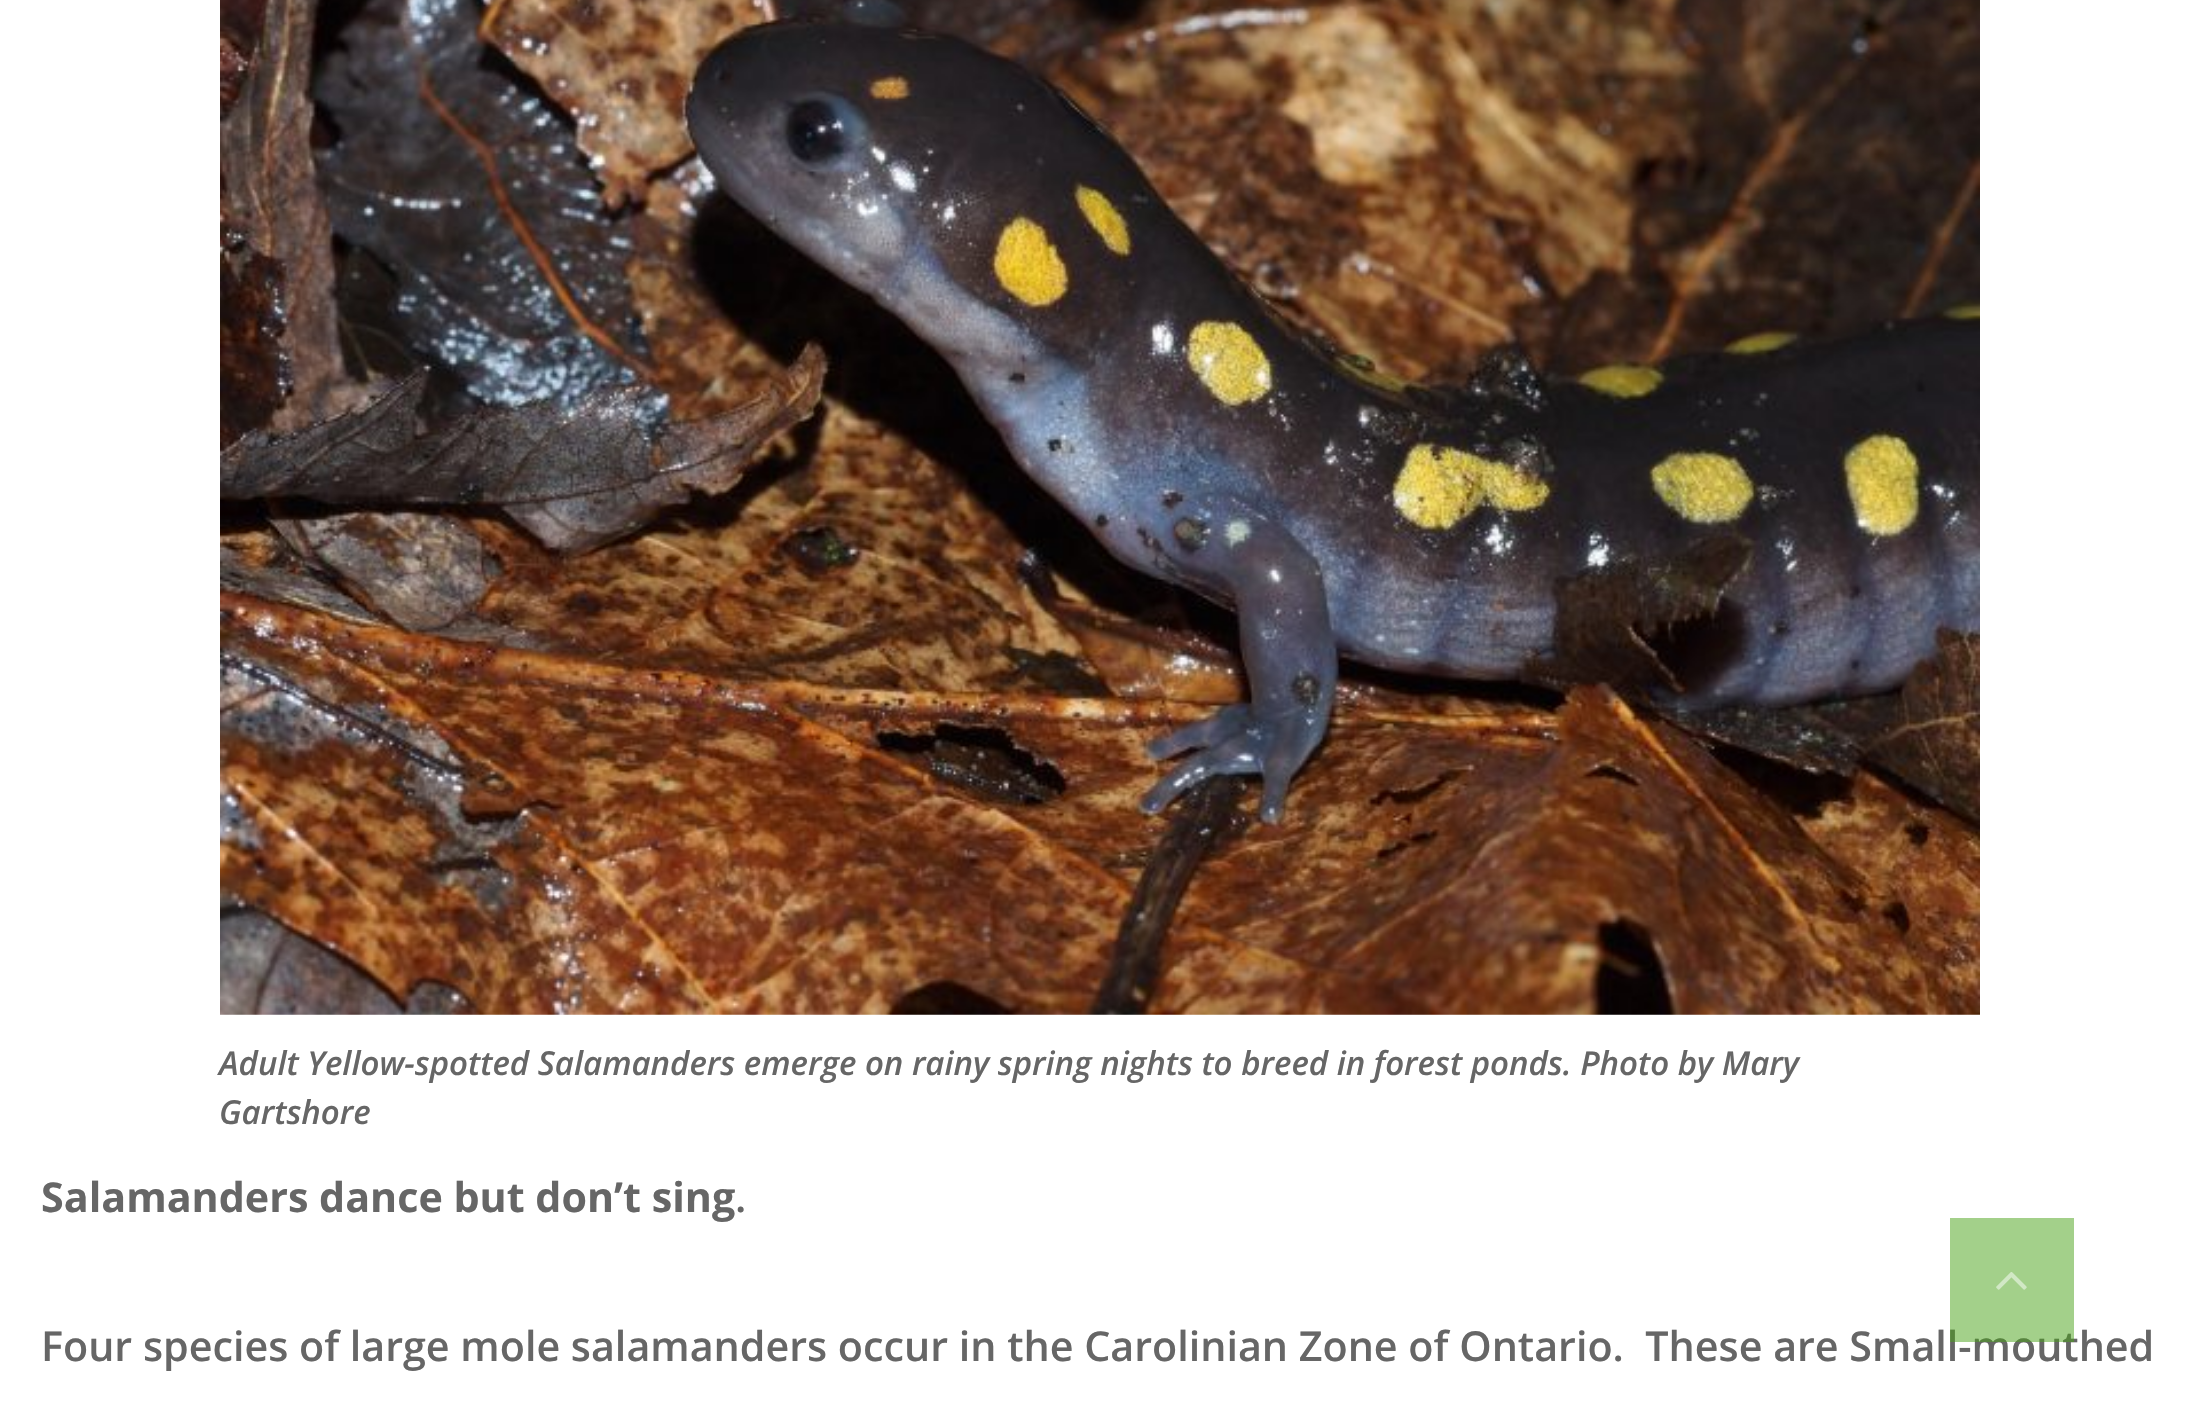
#include "include/core/SkBlurTypes.h"
#include "include/core/SkCanvas.h"
#include "include/core/SkData.h"
#include "include/core/SkFont.h"
#include "include/core/SkFontMgr.h"
#include "include/core/SkImage.h"
#include "include/core/SkMaskFilter.h"
#include "include/core/SkPaint.h"
#include "include/core/SkPathBuilder.h"
#include "include/core/SkTextBlob.h"
#include "include/effects/SkDashPathEffect.h"
#include "include/effects/SkGradientShader.h"
#include "include/utils/SkParsePath.h"

extern sk_sp<SkFontMgr> fontMgr;

void draw(SkCanvas* canvas) {
  SkPaint p;
  p.setAntiAlias(true);
  canvas->clear(SK_ColorWHITE);
  canvas->drawImageRect(SkImages::DeferredFromEncodedData(SkData::MakeFromFileName("images/1.png")), SkRect::MakeLTRB(220, 0, 1980, 1015), SkSamplingOptions());
  SkFont font1(fontMgr->matchFamilyStyle("Open Sans", SkFontStyle(600, SkFontStyle::kNormal_Width, SkFontStyle::kItalic_Slant)), 33);
  font1.setSubpixel(true);
  p.setColor(SkColorSetRGB(102, 102, 102));
  canvas->drawString("Adult Yellow-spotted Salamanders emerge on rainy spring nights to breed in forest ponds. Photo by Mary", 219, 1075, font1, p);
  canvas->drawString("Gartshore", 219, 1124, font1, p);
  SkFont font2(fontMgr->matchFamilyStyle("Open Sans", SkFontStyle::Bold()), 41.25f);
  font2.setSubpixel(true);
  canvas->drawString("Salamanders dance but don’t sing", 41, 1212, font2, p);
  SkFont font3(fontMgr->matchFamilyStyle("Open Sans", SkFontStyle(600, SkFontStyle::kNormal_Width, SkFontStyle::kUpright_Slant)), 41.25f);
  font3.setSubpixel(true);
  canvas->drawString(".", 735, 1212, font3, p);
  canvas->drawString("Four species of large mole salamanders occur in the Carolinian Zone of Ontario.  These are Small-mouthed", 41, 1361, font3, p);
  p.setColor(SkColorSetARGB(128, 72, 161, 21));
  canvas->drawRect(SkRect::MakeLTRB(1950, 1218, 2074, 1342), p);
  canvas->drawImageRect(SkImages::DeferredFromEncodedData(SkData::MakeFromFileName("images/2.png")), SkRect::MakeLTRB(1996, 1272, 2027, 1290), SkSamplingOptions());
}
